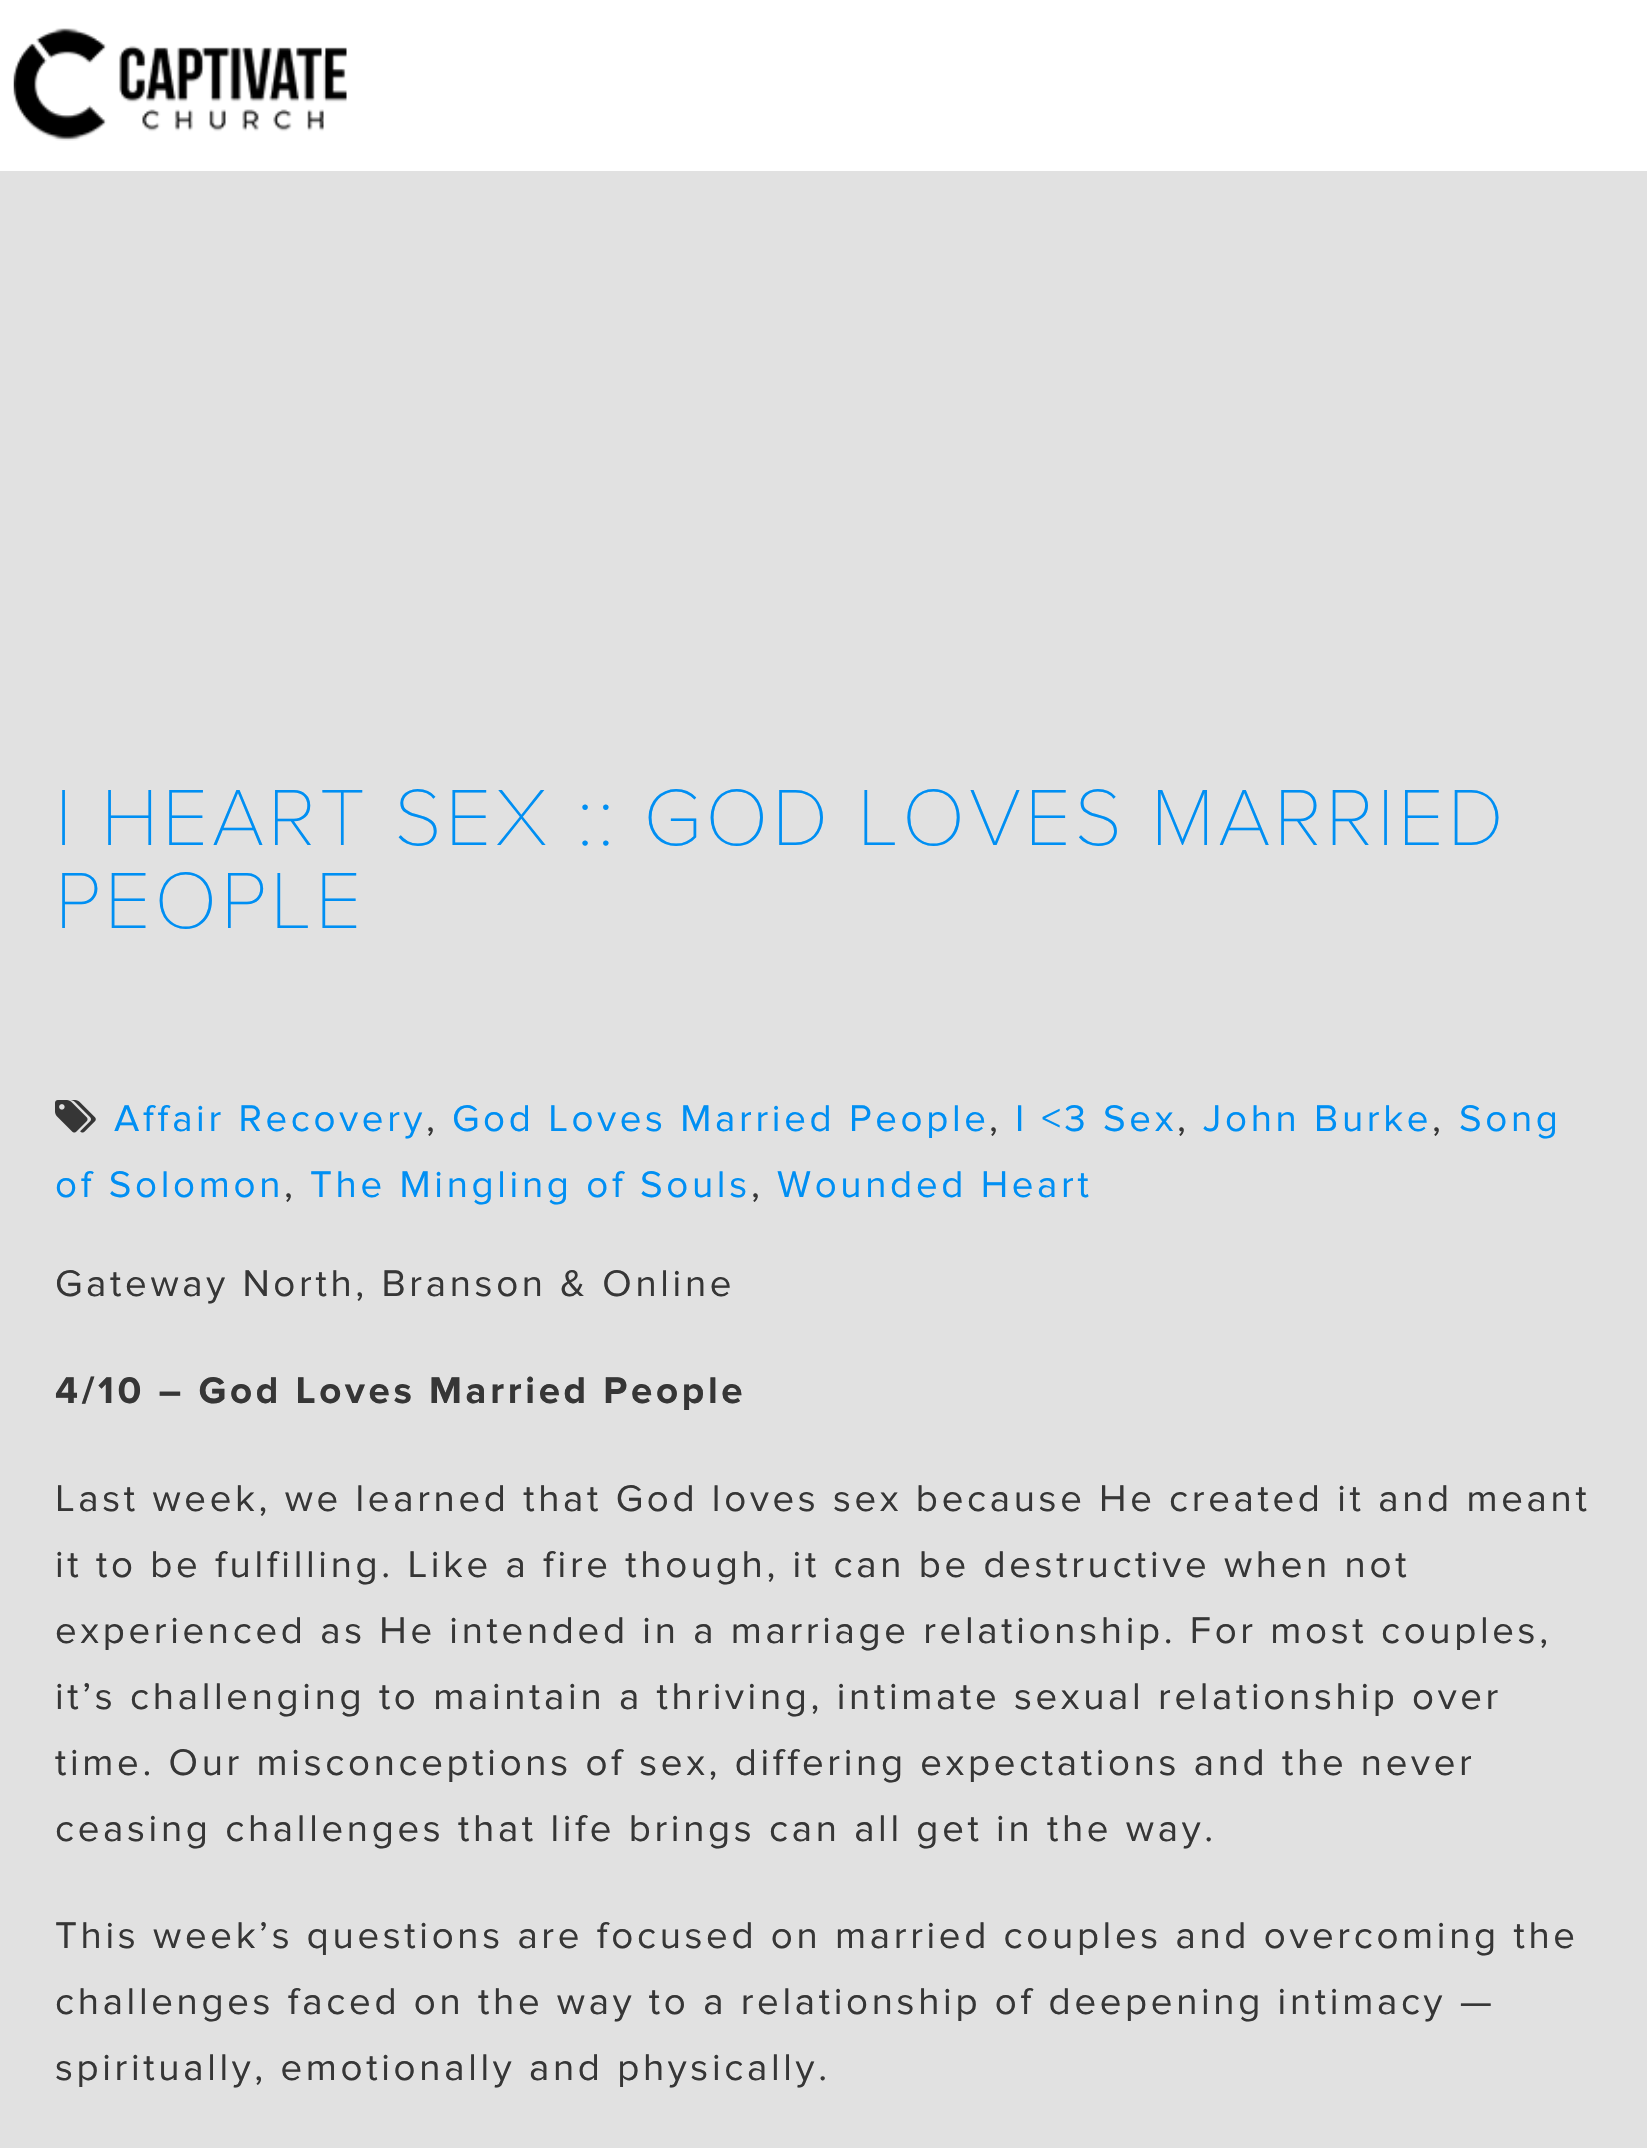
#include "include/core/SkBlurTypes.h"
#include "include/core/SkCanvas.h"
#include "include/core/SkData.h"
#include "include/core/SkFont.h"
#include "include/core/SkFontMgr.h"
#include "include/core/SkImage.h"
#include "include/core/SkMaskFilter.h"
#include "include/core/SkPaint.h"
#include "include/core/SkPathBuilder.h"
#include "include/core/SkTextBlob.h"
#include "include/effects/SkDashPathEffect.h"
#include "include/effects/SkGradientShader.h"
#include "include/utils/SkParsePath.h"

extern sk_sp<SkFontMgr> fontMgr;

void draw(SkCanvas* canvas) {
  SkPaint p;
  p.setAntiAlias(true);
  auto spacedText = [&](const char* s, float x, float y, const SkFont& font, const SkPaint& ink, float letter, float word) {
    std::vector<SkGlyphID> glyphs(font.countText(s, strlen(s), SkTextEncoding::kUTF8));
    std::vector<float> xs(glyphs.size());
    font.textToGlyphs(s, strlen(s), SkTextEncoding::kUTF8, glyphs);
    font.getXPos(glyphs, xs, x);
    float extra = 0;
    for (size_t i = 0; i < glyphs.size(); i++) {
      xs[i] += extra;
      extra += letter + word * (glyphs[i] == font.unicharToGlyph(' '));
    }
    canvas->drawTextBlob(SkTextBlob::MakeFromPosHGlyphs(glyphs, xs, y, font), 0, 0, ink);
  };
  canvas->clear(SkColorSetRGB(225, 225, 225));
  p.setColor(SK_ColorWHITE);
  canvas->drawRect(SkRect::MakeLTRB(0, 0, 1647, 171), p);
  canvas->drawImageRect(SkImages::DeferredFromEncodedData(SkData::MakeFromFileName("images/1.png")), SkRect::MakeLTRB(13, 28, 347, 141), SkSamplingOptions());
  canvas->drawImageRect(SkImages::DeferredFromEncodedData(SkData::MakeFromFileName("images/2.png")), SkRect::MakeLTRB(55, 1100, 96, 1133), SkSamplingOptions());
  SkFont font1(fontMgr->matchFamilyStyle("Proxima Nova", SkFontStyle(100, SkFontStyle::kNormal_Width, SkFontStyle::kUpright_Slant)), 82.5f);
  font1.setSubpixel(true);
  p.setColor(SkColorSetRGB(0, 143, 243));
  spacedText("I HEART SEX :: GOD LOVES MARRIED", 55, 845, font1, p, 3.67f, 0);
  spacedText("PEOPLE", 55, 928, font1, p, 3.67f, 0);
  SkFont font2(fontMgr->matchFamilyStyle("Proxima Nova", SkFontStyle::Normal()), 38.5f);
  font2.setSubpixel(true);
  spacedText("Affair Recovery", 114, 1131, font2, p, 3.67f, 0);
  p.setColor(SkColorSetRGB(54, 54, 54));
  spacedText(",", 426, 1131, font2, p, 3.67f, 0);
  p.setColor(SkColorSetRGB(0, 143, 243));
  spacedText("God Loves Married People", 452, 1131, font2, p, 3.67f, 0);
  p.setColor(SkColorSetRGB(54, 54, 54));
  spacedText(",", 989, 1131, font2, p, 3.67f, 0);
  p.setColor(SkColorSetRGB(0, 143, 243));
  spacedText("I <3 Sex", 1015, 1131, font2, p, 3.67f, 0);
  p.setColor(SkColorSetRGB(54, 54, 54));
  spacedText(",", 1177, 1131, font2, p, 3.67f, 0);
  p.setColor(SkColorSetRGB(0, 143, 243));
  spacedText("John Burke", 1203, 1131, font2, p, 3.67f, 0);
  p.setColor(SkColorSetRGB(54, 54, 54));
  spacedText(",", 1432, 1131, font2, p, 3.67f, 0);
  p.setColor(SkColorSetRGB(0, 143, 243));
  spacedText("Song", 1459, 1131, font2, p, 3.67f, 0);
  spacedText("of Solomon", 55, 1197, font2, p, 3.67f, 0);
  p.setColor(SkColorSetRGB(54, 54, 54));
  spacedText(",", 284, 1197, font2, p, 3.67f, 0);
  p.setColor(SkColorSetRGB(0, 143, 243));
  spacedText("The Mingling of Souls", 310, 1197, font2, p, 3.67f, 0);
  p.setColor(SkColorSetRGB(54, 54, 54));
  spacedText(",", 751, 1197, font2, p, 3.67f, 0);
  p.setColor(SkColorSetRGB(0, 143, 243));
  spacedText("Wounded Heart", 777, 1197, font2, p, 3.67f, 0);
  p.setColor(SkColorSetRGB(54, 54, 54));
  spacedText("Gateway North, Branson & Online", 55, 1296, font2, p, 3.67f, 0);
  SkFont font3(fontMgr->matchFamilyStyle("Proxima Nova", SkFontStyle::Bold()), 38.5f);
  font3.setSubpixel(true);
  spacedText("4/10 – God Loves Married People", 55, 1403, font3, p, 3.67f, 0);
  spacedText("Last week, we learned that God loves sex because He created it and meant", 55, 1511, font2, p, 3.67f, 0);
  spacedText("it to be fulfilling. Like a fire though, it can be destructive when not", 55, 1577, font2, p, 3.67f, 0);
  spacedText("experienced as He intended in a marriage relationship. For most couples,", 55, 1643, font2, p, 3.67f, 0);
  spacedText("it’s challenging to maintain a thriving, intimate sexual relationship over", 55, 1709, font2, p, 3.67f, 0);
  spacedText("time. Our misconceptions of sex, differing expectations and the never", 55, 1775, font2, p, 3.67f, 0);
  spacedText("ceasing challenges that life brings can all get in the way.", 55, 1841, font2, p, 3.67f, 0);
  spacedText("This week’s questions are focused on married couples and overcoming the", 55, 1948, font2, p, 3.67f, 0);
  spacedText("challenges faced on the way to a relationship of deepening intimacy —", 55, 2014, font2, p, 3.67f, 0);
  spacedText("spiritually, emotionally and physically.", 55, 2080, font2, p, 3.67f, 0);
}
